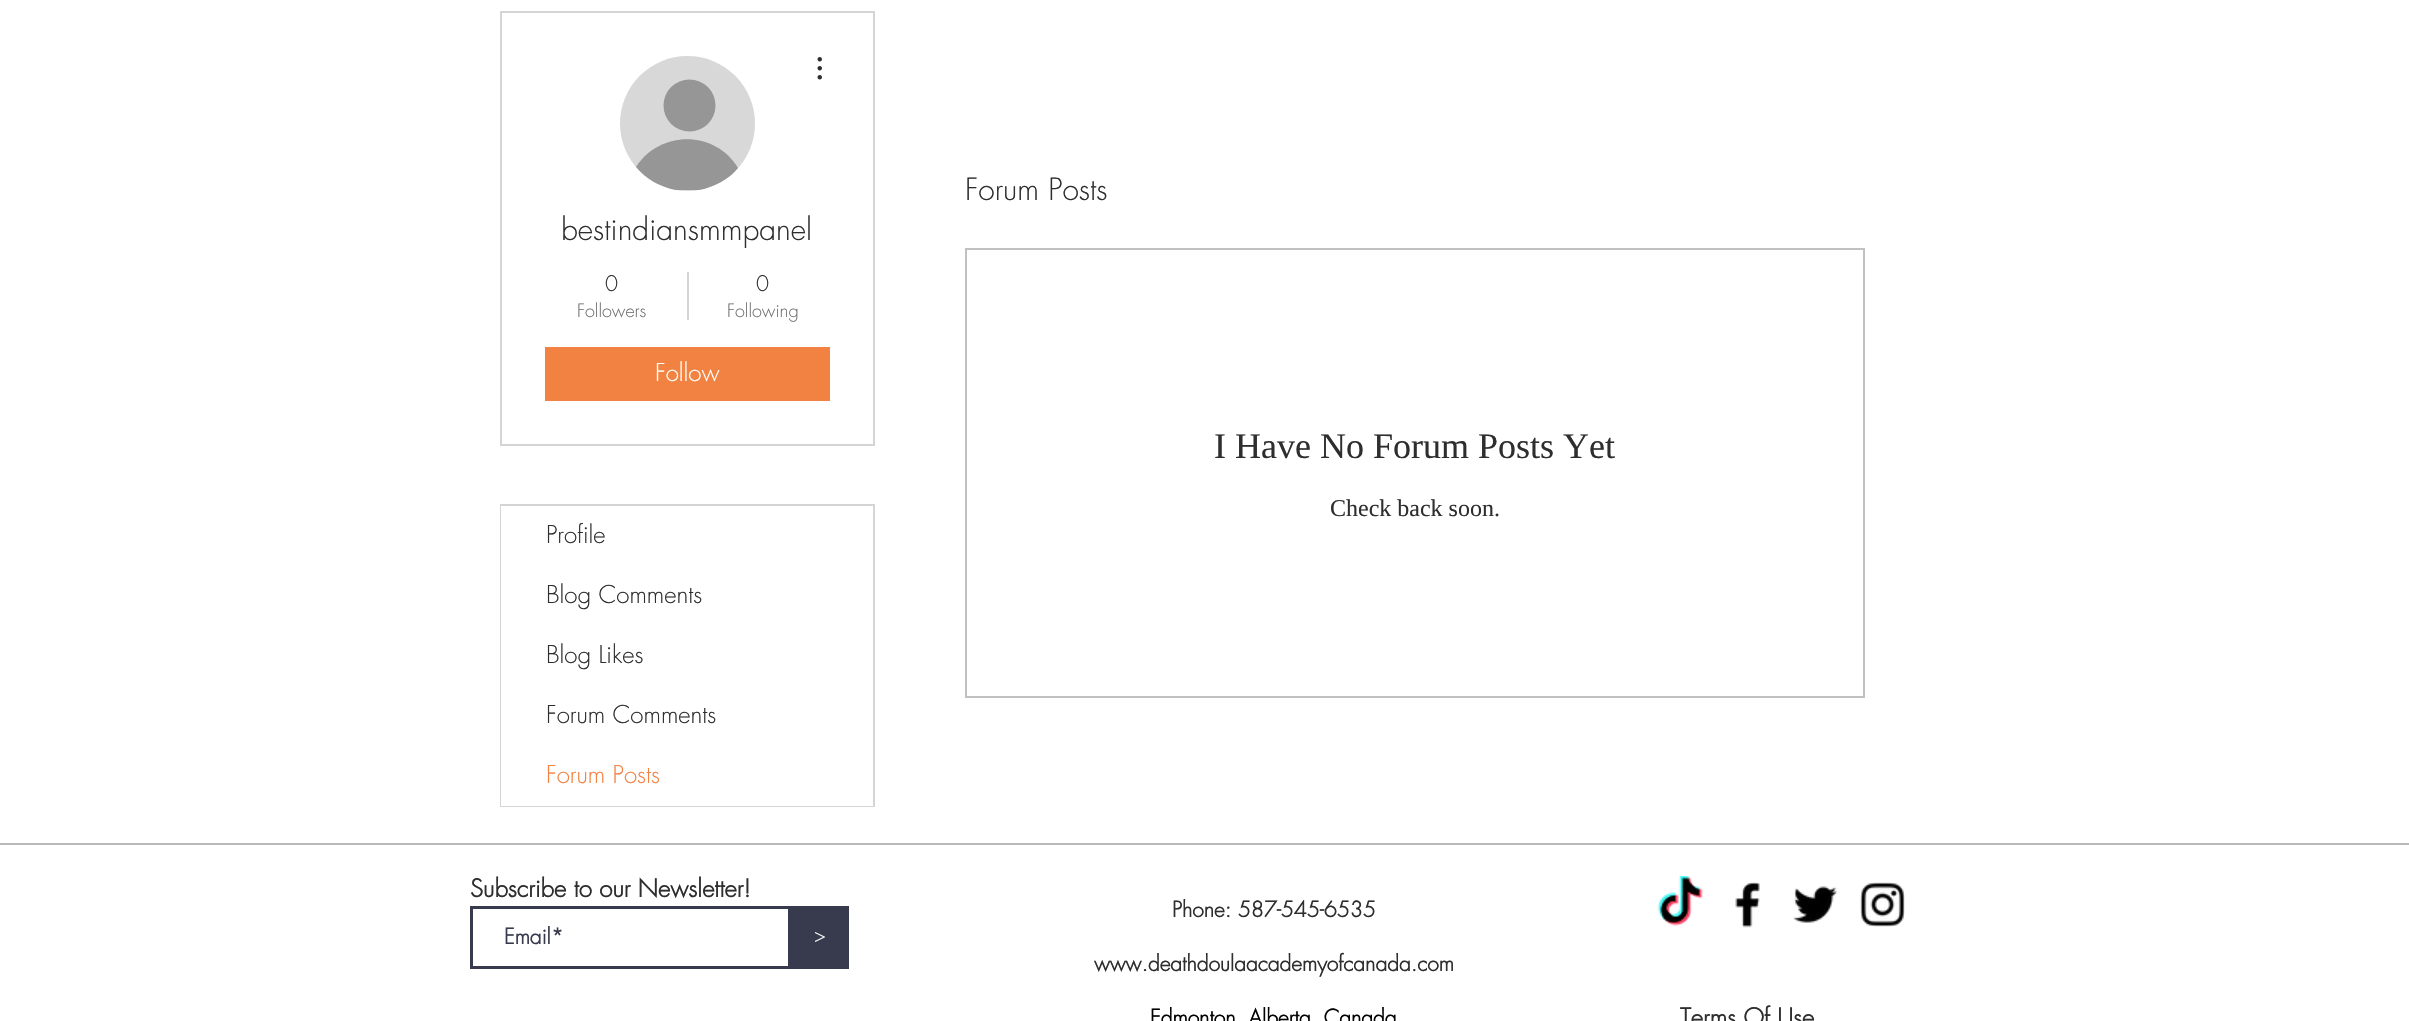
#include "include/core/SkBlurTypes.h"
#include "include/core/SkCanvas.h"
#include "include/core/SkData.h"
#include "include/core/SkFont.h"
#include "include/core/SkFontMgr.h"
#include "include/core/SkImage.h"
#include "include/core/SkMaskFilter.h"
#include "include/core/SkPaint.h"
#include "include/core/SkPathBuilder.h"
#include "include/core/SkTextBlob.h"
#include "include/effects/SkDashPathEffect.h"
#include "include/effects/SkGradientShader.h"
#include "include/utils/SkParsePath.h"

extern sk_sp<SkFontMgr> fontMgr;

void draw(SkCanvas* canvas) {
  SkPaint p;
  p.setAntiAlias(true);
  canvas->clear(SK_ColorWHITE);
  p.setStyle(SkPaint::kStroke_Style);
  p.setStrokeWidth(2);
  p.setColor(SkColorSetRGB(213, 213, 213));
  canvas->drawRect(SkRect::MakeLTRB(501, 12, 874, 445), p);
  p.setStyle(SkPaint::kFill_Style);
  p.setColor(SkColorSetRGB(216, 216, 216));
  canvas->drawCircle(687.5f, 123.5f, 67.5f, p);
  p.setColor(SkColorSetRGB(150, 150, 150));
  canvas->drawCircle(689.5f, 105.5f, 26, p);
  canvas->drawPath(SkPathBuilder().moveTo(676, 190).cubicTo(660, 187, 646, 179, 636, 167).cubicTo(660, 130, 715, 130, 738, 168).cubicTo(729, 179, 715, 187, 699, 190).close().detach(), p);
  canvas->drawImageRect(SkImages::DeferredFromEncodedData(SkData::MakeFromFileName("images/1.png")), SkRect::MakeLTRB(817, 57, 822, 80), SkSamplingOptions());
  p.setColor(SkColorSetRGB(213, 213, 213));
  canvas->drawRect(SkRect::MakeLTRB(687, 272, 689, 320), p);
  p.setColor(SkColorSetRGB(242, 130, 65));
  canvas->drawRect(SkRect::MakeLTRB(545, 347, 830, 401), p);
  p.setStyle(SkPaint::kStroke_Style);
  p.setColor(SkColorSetRGB(213, 213, 213));
  canvas->drawRect(SkRect::MakeLTRB(501, 505, 874, 806), p);
  p.setStyle(SkPaint::kFill_Style);
  p.setColor(SK_ColorWHITE);
  canvas->drawRect(SkRect::MakeLTRB(501, 506, 502, 746), p);
  canvas->drawRect(SkRect::MakeLTRB(501, 746, 873, 806), p);
  p.setStyle(SkPaint::kStroke_Style);
  p.setColor(SkColorSetRGB(193, 192, 192));
  canvas->drawRect(SkRect::MakeLTRB(966, 249, 1864, 697), p);
  p.setStyle(SkPaint::kFill_Style);
  p.setColor(SkColorSetRGB(184, 184, 184));
  canvas->drawRect(SkRect::MakeLTRB(0, 843, 2409, 845), p);
  canvas->drawImageRect(SkImages::DeferredFromEncodedData(SkData::MakeFromFileName("images/2.png")), SkRect::MakeLTRB(1657, 876, 1703, 926), SkSamplingOptions());
  canvas->drawImageRect(SkImages::DeferredFromEncodedData(SkData::MakeFromFileName("images/3.png")), SkRect::MakeLTRB(1735, 882, 1760, 928), SkSamplingOptions());
  canvas->drawImageRect(SkImages::DeferredFromEncodedData(SkData::MakeFromFileName("images/4.png")), SkRect::MakeLTRB(1793, 886, 1838, 923), SkSamplingOptions());
  canvas->drawImageRect(SkImages::DeferredFromEncodedData(SkData::MakeFromFileName("images/5.png")), SkRect::MakeLTRB(1860, 882, 1905, 927), SkSamplingOptions());
  p.setStyle(SkPaint::kStroke_Style);
  p.setStrokeWidth(3);
  p.setColor(SkColorSetRGB(55, 59, 77));
  canvas->drawRect(SkRect::MakeLTRB(471.5f, 907.5f, 789.5f, 967.5f), p);
  p.setStyle(SkPaint::kFill_Style);
  canvas->drawRect(SkRect::MakeLTRB(791, 906, 849, 969), p);
  SkFont font1(fontMgr->matchFamilyStyle("futura", SkFontStyle(300, SkFontStyle::kNormal_Width, SkFontStyle::kUpright_Slant)), 30);
  font1.setSubpixel(true);
  p.setColor(SkColorSetRGB(47, 46, 46));
  canvas->drawString("bestindiansmmpanel", 561, 240, font1, p);
  SkFont font2(fontMgr->matchFamilyStyle("futura", SkFontStyle(300, SkFontStyle::kNormal_Width, SkFontStyle::kUpright_Slant)), 21);
  font2.setSubpixel(true);
  canvas->drawString("0", 605, 291, font2, p);
  SkFont font3(fontMgr->matchFamilyStyle("futura", SkFontStyle(300, SkFontStyle::kNormal_Width, SkFontStyle::kUpright_Slant)), 18);
  font3.setSubpixel(true);
  p.setColor(SkColorSetRGB(109, 109, 109));
  canvas->drawString("Followers", 577, 317, font3, p);
  p.setColor(SkColorSetRGB(47, 46, 46));
  canvas->drawString("0", 756, 291, font2, p);
  p.setColor(SkColorSetRGB(109, 109, 109));
  canvas->drawString("Following", 727, 317, font3, p);
  SkFont font4(fontMgr->matchFamilyStyle("futura", SkFontStyle(300, SkFontStyle::kNormal_Width, SkFontStyle::kUpright_Slant)), 24);
  font4.setSubpixel(true);
  p.setColor(SK_ColorWHITE);
  canvas->drawString("Follow", 655, 381, font4, p);
  p.setColor(SkColorSetRGB(47, 46, 46));
  canvas->drawString("Profile", 546, 543, font4, p);
  canvas->drawString("Blog Comments", 546, 603, font4, p);
  canvas->drawString("Blog Likes", 546, 663, font4, p);
  canvas->drawString("Forum Comments", 546, 723, font4, p);
  p.setColor(SkColorSetRGB(242, 130, 65));
  canvas->drawString("Forum Posts", 546, 783, font4, p);
  p.setColor(SkColorSetRGB(47, 46, 46));
  canvas->drawString("Forum Posts", 965, 200, font1, p);
  SkFont font5(fontMgr->matchFamilyStyle("Liberation Serif", SkFontStyle::Normal()), 36);
  font5.setSubpixel(true);
  canvas->drawString("I Have No Forum Posts Yet", 1214, 458, font5, p);
  SkFont font6(fontMgr->matchFamilyStyle("Liberation Serif", SkFontStyle::Normal()), 24);
  font6.setSubpixel(true);
  canvas->drawString("Check back soon.", 1330, 516, font6, p);
  SkFont font7(fontMgr->matchFamilyStyle("futura", SkFontStyle::Bold()), 24);
  font7.setSubpixel(true);
  canvas->drawString("Subscribe to our Newsletter!", 470, 897, font7, p);
  SkFont font8(fontMgr->matchFamilyStyle("futura", SkFontStyle::Bold()), 21);
  font8.setSubpixel(true);
  p.setColor(SkColorSetRGB(55, 59, 77));
  canvas->drawString("Email*", 504, 944, font8, p);
  SkFont font9(fontMgr->matchFamilyStyle("Liberation Serif", SkFontStyle::Normal()), 21);
  font9.setSubpixel(true);
  p.setColor(SK_ColorWHITE);
  canvas->drawString(">", 814, 944, font9, p);
  p.setColor(SkColorSetRGB(47, 46, 46));
  canvas->drawString("Phone: 587-545-6535", 1172, 917, font8, p);
  canvas->drawString("www.deathdoulaacademyofcanada.com", 1094, 971, font8, p);
  p.setColor(SK_ColorBLACK);
  canvas->drawString("Edmonton, Alberta, Canada", 1150, 1025, font8, p);
  p.setColor(SkColorSetRGB(47, 46, 46));
  canvas->drawString("Terms Of Use", 1680, 1026, font7, p);
}
